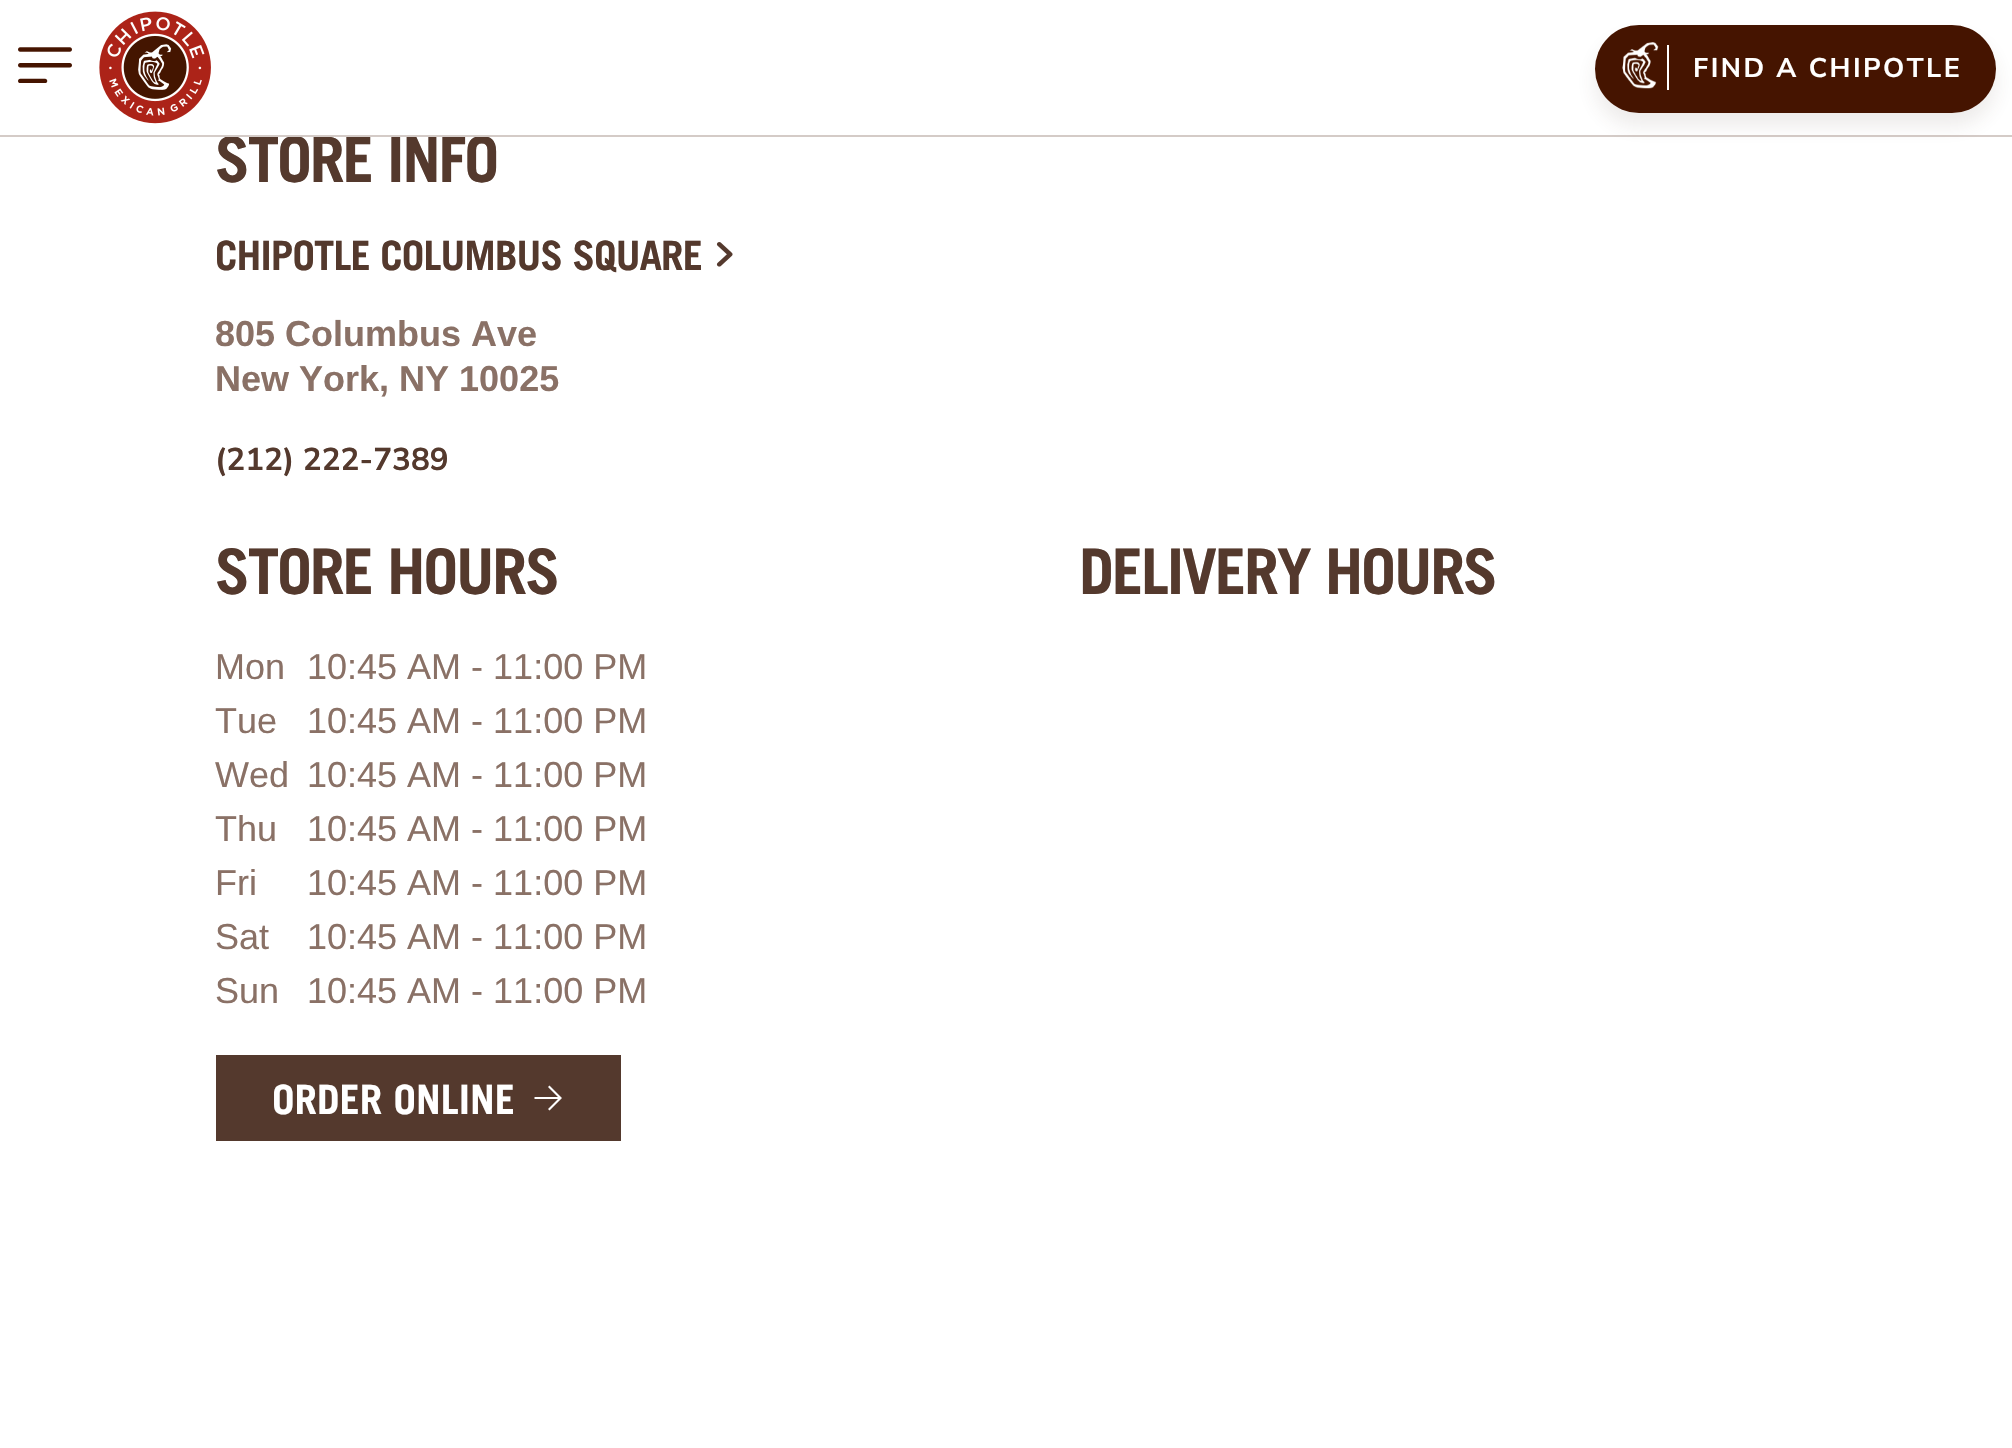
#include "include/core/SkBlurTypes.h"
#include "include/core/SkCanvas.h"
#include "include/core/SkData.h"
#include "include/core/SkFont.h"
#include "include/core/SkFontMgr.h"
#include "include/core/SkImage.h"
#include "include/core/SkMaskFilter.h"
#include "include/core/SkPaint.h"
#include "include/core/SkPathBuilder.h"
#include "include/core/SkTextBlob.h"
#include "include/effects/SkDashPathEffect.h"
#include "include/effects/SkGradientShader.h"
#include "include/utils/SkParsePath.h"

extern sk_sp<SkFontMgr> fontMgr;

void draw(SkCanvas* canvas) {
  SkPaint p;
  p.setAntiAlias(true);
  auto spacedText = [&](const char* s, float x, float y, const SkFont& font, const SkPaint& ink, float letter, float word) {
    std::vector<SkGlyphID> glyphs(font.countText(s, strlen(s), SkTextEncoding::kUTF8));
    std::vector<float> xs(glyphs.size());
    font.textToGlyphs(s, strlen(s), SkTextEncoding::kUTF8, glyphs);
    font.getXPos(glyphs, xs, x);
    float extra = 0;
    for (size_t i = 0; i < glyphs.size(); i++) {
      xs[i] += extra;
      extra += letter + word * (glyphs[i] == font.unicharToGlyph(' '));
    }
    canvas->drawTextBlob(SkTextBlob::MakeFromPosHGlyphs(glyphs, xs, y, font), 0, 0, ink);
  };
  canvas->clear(SK_ColorWHITE);
  canvas->drawImageRect(SkImages::DeferredFromEncodedData(SkData::MakeFromFileName("images/1.png")), SkRect::MakeLTRB(18, 47, 72, 83), SkSamplingOptions());
  canvas->drawImageRect(SkImages::DeferredFromEncodedData(SkData::MakeFromFileName("images/2.png")), SkRect::MakeLTRB(99, 11, 211, 124), SkSamplingOptions());
  canvas->drawImageRect(SkImages::DeferredFromEncodedData(SkData::MakeFromFileName("images/4.png")), SkRect::MakeLTRB(716, 242, 733, 267), SkSamplingOptions());
  p.setColor(SkColorSetRGB(84, 57, 45));
  canvas->drawRect(SkRect::MakeLTRB(216, 1055, 621, 1141), p);
  p.setColor(SK_ColorWHITE);
  canvas->drawPath(SkPathBuilder(SkPathFillType::kEvenOdd).moveTo(558, 1099).lineTo(534.5f, 1099).lineTo(534.5f, 1097).lineTo(558, 1097).lineTo(548, 1087).lineTo(549.5f, 1085.5f).lineTo(562, 1098).lineTo(549.5f, 1110.5f).lineTo(548, 1109).close().detach(), p);
  SkFont font1(fontMgr->matchFamilyStyle("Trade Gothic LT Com", SkFontStyle::Bold()), 63);
  font1.setSubpixel(true);
  p.setColor(SkColorSetRGB(84, 57, 45));
  spacedText("STORE INFO", 215, 182, font1, p, -2.25f, 0);
  p.setColor(SkColorSetRGB(212, 203, 199));
  canvas->drawRect(SkRect::MakeLTRB(0, 135, 2012, 137), p);
  p.setColor(SkColorSetARGB(26, 77, 56, 47));
  p.setMaskFilter(SkMaskFilter::MakeBlur(kNormal_SkBlurStyle, 10));
  canvas->drawRoundRect(SkRect::MakeLTRB(1595, 38, 1996, 126), 44, 44, p);
  p.setMaskFilter(nullptr);
  p.setColor(SkColorSetRGB(69, 20, 0));
  canvas->drawRoundRect(SkRect::MakeLTRB(1595, 25, 1996, 113), 44, 44, p);
  p.setColor(SK_ColorWHITE);
  canvas->drawRect(SkRect::MakeLTRB(1667, 45, 1669, 90), p);
  canvas->drawImageRect(SkImages::DeferredFromEncodedData(SkData::MakeFromFileName("images/3.png")), SkRect::MakeLTRB(1622, 42, 1659, 89), SkSamplingOptions());
  SkFont font2(fontMgr->matchFamilyStyle("Nunito Sans", SkFontStyle::Bold()), 27);
  font2.setSubpixel(true);
  spacedText("FIND A CHIPOTLE", 1693, 77, font2, p, 2.5f, 0);
  SkFont font3(fontMgr->matchFamilyStyle("Trade Gothic LT Com", SkFontStyle::Bold()), 40.5f);
  font3.setSubpixel(true);
  p.setColor(SkColorSetRGB(84, 57, 45));
  spacedText("CHIPOTLE COLUMBUS SQUARE", 215, 270, font3, p, -0.9f, 0);
  SkFont font4(fontMgr->matchFamilyStyle("Liberation Sans", SkFontStyle::Bold()), 36);
  font4.setSubpixel(true);
  p.setColor(SkColorSetRGB(138, 113, 102));
  canvas->drawString("805 Columbus Ave", 215, 346, font4, p);
  canvas->drawString("New York, NY 10025", 215, 391, font4, p);
  SkFont font5(fontMgr->matchFamilyStyle("Nunito Sans", SkFontStyle::Bold()), 31.5f);
  font5.setSubpixel(true);
  p.setColor(SkColorSetRGB(84, 57, 45));
  canvas->drawString("(212) 222-7389", 215, 470, font5, p);
  spacedText("STORE HOURS", 215, 594, font1, p, -2.25f, 0);
  SkFont font6(fontMgr->matchFamilyStyle("Liberation Sans", SkFontStyle::Normal()), 36);
  font6.setSubpixel(true);
  p.setColor(SkColorSetRGB(138, 113, 102));
  canvas->drawString("Mon", 215, 679, font6, p);
  canvas->drawString("10:45 AM - 11:00 PM", 307, 679, font6, p);
  canvas->drawString("Tue", 215, 733, font6, p);
  canvas->drawString("10:45 AM - 11:00 PM", 307, 733, font6, p);
  canvas->drawString("Wed", 215, 787, font6, p);
  canvas->drawString("10:45 AM - 11:00 PM", 307, 787, font6, p);
  canvas->drawString("Thu", 215, 841, font6, p);
  canvas->drawString("10:45 AM - 11:00 PM", 307, 841, font6, p);
  canvas->drawString("Fri", 215, 895, font6, p);
  canvas->drawString("10:45 AM - 11:00 PM", 307, 895, font6, p);
  canvas->drawString("Sat", 215, 949, font6, p);
  canvas->drawString("10:45 AM - 11:00 PM", 307, 949, font6, p);
  canvas->drawString("Sun", 215, 1003, font6, p);
  canvas->drawString("10:45 AM - 11:00 PM", 307, 1003, font6, p);
  p.setColor(SK_ColorWHITE);
  canvas->drawString("ORDER ONLINE", 272, 1114, font3, p);
  p.setColor(SkColorSetRGB(84, 57, 45));
  spacedText("DELIVERY HOURS", 1079, 594, font1, p, -2.25f, 0);
}
